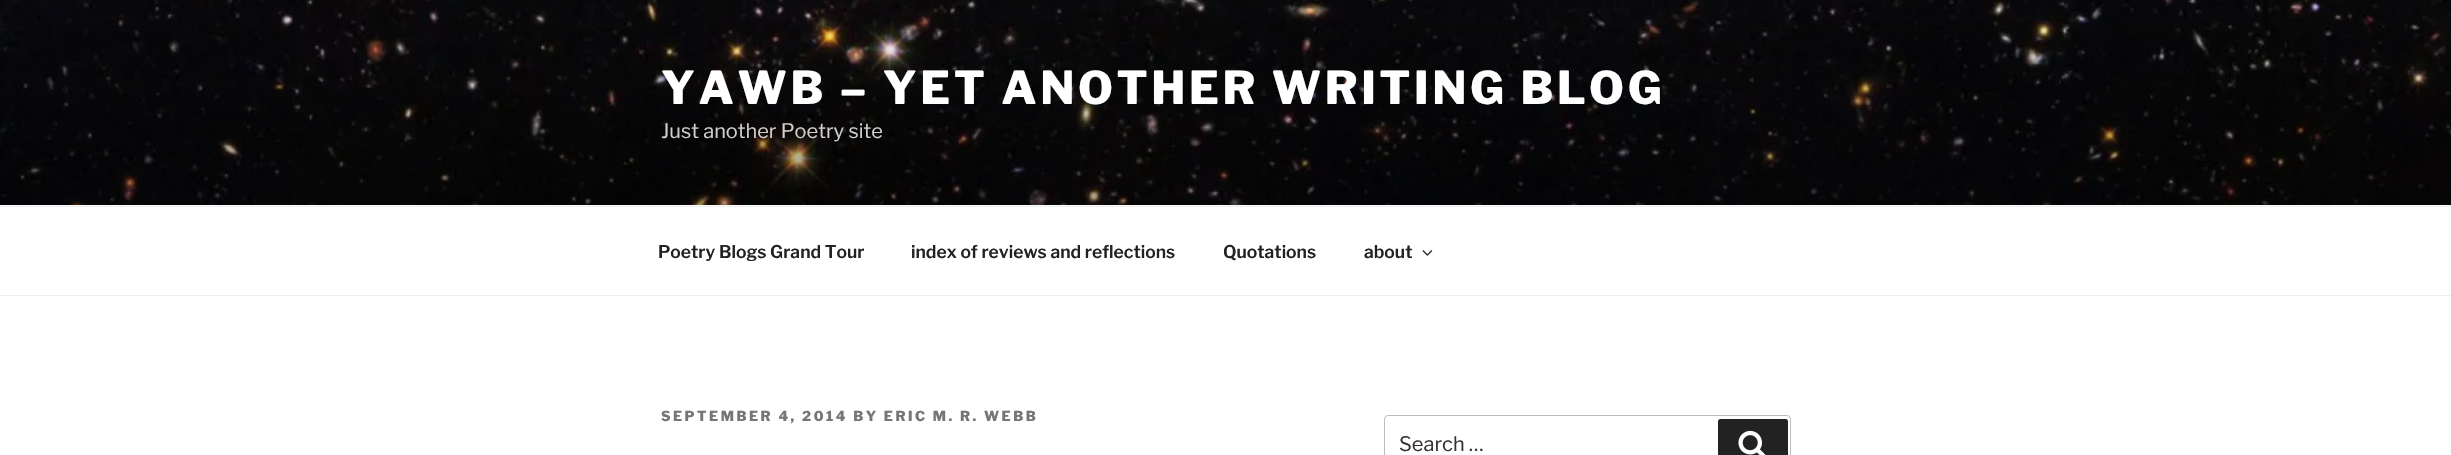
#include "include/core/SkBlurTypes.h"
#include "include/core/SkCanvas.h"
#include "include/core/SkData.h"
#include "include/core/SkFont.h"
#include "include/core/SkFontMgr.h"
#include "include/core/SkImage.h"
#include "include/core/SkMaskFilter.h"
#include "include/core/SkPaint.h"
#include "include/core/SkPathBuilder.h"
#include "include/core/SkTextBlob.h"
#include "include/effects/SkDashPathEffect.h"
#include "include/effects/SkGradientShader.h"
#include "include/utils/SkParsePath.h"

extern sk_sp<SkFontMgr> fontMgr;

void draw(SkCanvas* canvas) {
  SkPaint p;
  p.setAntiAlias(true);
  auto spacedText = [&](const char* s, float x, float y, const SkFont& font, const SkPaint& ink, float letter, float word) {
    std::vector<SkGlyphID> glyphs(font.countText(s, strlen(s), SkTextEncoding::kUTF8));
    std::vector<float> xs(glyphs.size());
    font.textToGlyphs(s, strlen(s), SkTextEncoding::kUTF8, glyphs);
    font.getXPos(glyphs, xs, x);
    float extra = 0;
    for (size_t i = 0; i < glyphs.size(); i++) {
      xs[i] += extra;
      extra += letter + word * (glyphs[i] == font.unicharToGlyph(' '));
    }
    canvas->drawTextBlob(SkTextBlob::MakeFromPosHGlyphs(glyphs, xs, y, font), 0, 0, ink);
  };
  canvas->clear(SK_ColorWHITE);
  p.setColor(SkColorSetRGB(250, 250, 250));
  canvas->drawRect(SkRect::MakeLTRB(0, 205, 2451, 206), p);
  canvas->drawImageRect(SkImages::DeferredFromEncodedData(SkData::MakeFromFileName("images/1.png")), SkRect::MakeLTRB(0, 0, 2451, 205), SkSamplingOptions());
  p.setColor(SkColorSetRGB(238, 238, 238));
  canvas->drawRect(SkRect::MakeLTRB(0, 206, 2451, 207), p);
  canvas->drawRect(SkRect::MakeLTRB(0, 295, 2451, 296), p);
  canvas->drawImageRect(SkImages::DeferredFromEncodedData(SkData::MakeFromFileName("images/2.png")), SkRect::MakeLTRB(1422, 250, 1433, 256), SkSamplingOptions());
  p.setStyle(SkPaint::kStroke_Style);
  p.setStrokeWidth(1);
  p.setColor(SkColorSetRGB(187, 187, 187));
  canvas->drawRoundRect(SkRect::MakeLTRB(1384.5f, 415.5f, 1790.5f, 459.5f), 3.5f, 3.5f, p);
  p.setStyle(SkPaint::kFill_Style);
  p.setColor(SkColorSetRGB(34, 34, 34));
  canvas->drawRoundRect(SkRect::MakeLTRB(1718, 419, 1788, 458), 2.5f, 2.5f, p);
  canvas->drawImageRect(SkImages::DeferredFromEncodedData(SkData::MakeFromFileName("images/3.png")), SkRect::MakeLTRB(1738, 430, 1766, 455), SkSamplingOptions());
  SkFont font1(fontMgr->matchFamilyStyle("Libre Franklin", SkFontStyle(800, SkFontStyle::kNormal_Width, SkFontStyle::kUpright_Slant)), 45);
  font1.setSubpixel(true);
  p.setColor(SK_ColorWHITE);
  spacedText("YAWB – YET ANOTHER WRITING BLOG", 661, 104, font1, p, 3.6f, 0);
  SkFont font2(fontMgr->matchFamilyStyle("Libre Franklin", SkFontStyle::Normal()), 20);
  font2.setSubpixel(true);
  p.setColor(SkColorSetRGB(206, 206, 205));
  canvas->drawString("Just another Poetry site", 661, 138, font2, p);
  SkFont font3(fontMgr->matchFamilyStyle("Libre Franklin", SkFontStyle(600, SkFontStyle::kNormal_Width, SkFontStyle::kUpright_Slant)), 17.5f);
  font3.setSubpixel(true);
  p.setColor(SkColorSetRGB(34, 34, 34));
  canvas->drawString("Poetry Blogs Grand Tour", 658, 258, font3, p);
  canvas->drawString("index of reviews and reflections", 911, 258, font3, p);
  canvas->drawString("Quotations", 1223, 258, font3, p);
  canvas->drawString("about", 1364, 258, font3, p);
  SkFont font4(fontMgr->matchFamilyStyle("Libre Franklin", SkFontStyle(800, SkFontStyle::kNormal_Width, SkFontStyle::kUpright_Slant)), 13.75f);
  font4.setSubpixel(true);
  p.setColor(SkColorSetRGB(118, 118, 118));
  spacedText("SEPTEMBER 4, 2014 BY ERIC M. R. WEBB", 661, 421, font4, p, 2.5f, 0);
  p.setColor(SkColorSetRGB(51, 51, 51));
  canvas->drawString("Search …", 1399, 451, font2, p);
}
